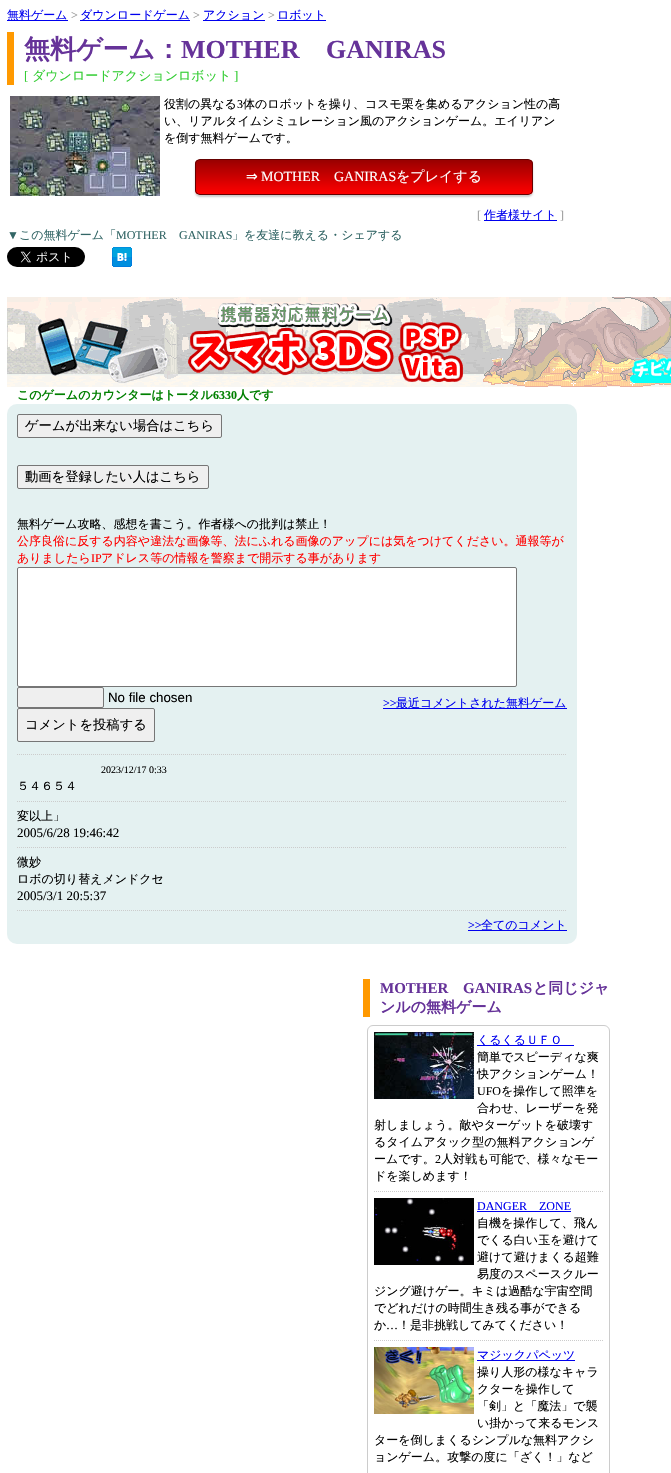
#include "include/core/SkBlurTypes.h"
#include "include/core/SkCanvas.h"
#include "include/core/SkData.h"
#include "include/core/SkFont.h"
#include "include/core/SkFontMgr.h"
#include "include/core/SkImage.h"
#include "include/core/SkMaskFilter.h"
#include "include/core/SkPaint.h"
#include "include/core/SkPathBuilder.h"
#include "include/core/SkTextBlob.h"
#include "include/effects/SkDashPathEffect.h"
#include "include/effects/SkGradientShader.h"
#include "include/utils/SkParsePath.h"

extern sk_sp<SkFontMgr> fontMgr;

void draw(SkCanvas* canvas) {
  SkPaint p;
  p.setAntiAlias(true);
  canvas->clear(SK_ColorWHITE);
  p.setColor(SkColorSetRGB(0, 0, 238));
  canvas->drawRect(SkRect::MakeLTRB(7, 20, 68, 21), p);
  canvas->drawRect(SkRect::MakeLTRB(80, 20, 190, 21), p);
  canvas->drawRect(SkRect::MakeLTRB(203, 20, 265, 21), p);
  canvas->drawRect(SkRect::MakeLTRB(277, 20, 326, 21), p);
  p.setColor(SkColorSetRGB(255, 153, 0));
  canvas->drawRect(SkRect::MakeLTRB(7, 32, 14, 85), p);
  canvas->drawImageRect(SkImages::DeferredFromEncodedData(SkData::MakeFromFileName("images/1.png")), SkRect::MakeLTRB(10, 96, 160, 196), SkSamplingOptions());
  p.setColor(SkColorSetRGB(204, 204, 204));
  p.setMaskFilter(SkMaskFilter::MakeBlur(kNormal_SkBlurStyle, 1));
  canvas->drawRoundRect(SkRect::MakeLTRB(195, 161, 533, 197), 5, 5, p);
  p.setMaskFilter(nullptr);
  canvas->save();
  canvas->clipPath(SkPathBuilder().moveTo(200, 159).lineTo(528, 159).cubicTo(531, 159, 533, 161, 533, 164).lineTo(533, 190).cubicTo(533, 193, 531, 195, 528, 195).lineTo(200, 195).cubicTo(197, 195, 195, 193, 195, 190).lineTo(195, 164).cubicTo(195, 161, 197, 159, 200, 159).close().detach(), true);
  {
    const SkColor colors[] = {SkColorSetRGB(153, 0, 0), SkColorSetRGB(255, 0, 0)};
    const float stops[] = {0, 1};
    const SkPoint ends[] = {{196, 160}, {196, 194}};
    p.setShader(SkGradientShader::MakeLinear(ends, colors, stops, 2, SkTileMode::kClamp));
    p.setAlpha(255);
  }
  canvas->drawRect(SkRect::MakeLTRB(195, 160, 533, 194), p);
  canvas->restore();
  p.setStyle(SkPaint::kStroke_Style);
  p.setStrokeWidth(1);
  p.setShader(nullptr);
  p.setColor(SkColorSetRGB(102, 0, 0));
  canvas->drawRoundRect(SkRect::MakeLTRB(195.5f, 159.5f, 532.5f, 194.5f), 4.5f, 4.5f, p);
  p.setStyle(SkPaint::kFill_Style);
  p.setColor(SkColorSetRGB(0, 0, 238));
  canvas->drawRect(SkRect::MakeLTRB(484, 220, 557, 221), p);
  canvas->drawImageRect(SkImages::DeferredFromEncodedData(SkData::MakeFromFileName("images/2.png")), SkRect::MakeLTRB(7, 247, 85, 267), SkSamplingOptions());
  canvas->drawImageRect(SkImages::DeferredFromEncodedData(SkData::MakeFromFileName("images/3.png")), SkRect::MakeLTRB(112, 247, 132, 267), SkSamplingOptions());
  canvas->drawImageRect(SkImages::DeferredFromEncodedData(SkData::MakeFromFileName("images/4.png")), SkRect::MakeLTRB(7, 297, 671, 387), SkSamplingOptions());
  p.setColor(SkColorSetRGB(228, 241, 241));
  canvas->drawRoundRect(SkRect::MakeLTRB(7, 404, 577, 944), 10, 10, p);
  p.setColor(SkColorSetRGB(239, 239, 239));
  canvas->drawRoundRect(SkRect::MakeLTRB(17.5f, 414.5f, 221.5f, 437.5f), 1.5f, 1.5f, p);
  p.setStyle(SkPaint::kStroke_Style);
  p.setColor(SkColorSetRGB(118, 118, 118));
  canvas->drawRoundRect(SkRect::MakeLTRB(17.5f, 414.5f, 221.5f, 437.5f), 1.5f, 1.5f, p);
  p.setStyle(SkPaint::kFill_Style);
  p.setColor(SkColorSetRGB(239, 239, 239));
  canvas->drawRoundRect(SkRect::MakeLTRB(17.5f, 465.5f, 208.5f, 488.5f), 1.5f, 1.5f, p);
  p.setStyle(SkPaint::kStroke_Style);
  p.setColor(SkColorSetRGB(118, 118, 118));
  canvas->drawRoundRect(SkRect::MakeLTRB(17.5f, 465.5f, 208.5f, 488.5f), 1.5f, 1.5f, p);
  p.setStyle(SkPaint::kFill_Style);
  p.setColor(SK_ColorWHITE);
  canvas->drawRoundRect(SkRect::MakeLTRB(17.5f, 567.5f, 516.5f, 686.5f), 1.5f, 1.5f, p);
  p.setStyle(SkPaint::kStroke_Style);
  p.setColor(SkColorSetRGB(118, 118, 118));
  canvas->drawRoundRect(SkRect::MakeLTRB(17.5f, 567.5f, 516.5f, 686.5f), 1.5f, 1.5f, p);
  p.setStyle(SkPaint::kFill_Style);
  p.setColor(SkColorSetRGB(239, 239, 239));
  canvas->drawRoundRect(SkRect::MakeLTRB(17.5f, 687.5f, 103.5f, 707.5f), 1.5f, 1.5f, p);
  p.setStyle(SkPaint::kStroke_Style);
  p.setColor(SkColorSetRGB(118, 118, 118));
  canvas->drawRoundRect(SkRect::MakeLTRB(17.5f, 687.5f, 103.5f, 707.5f), 1.5f, 1.5f, p);
  p.setStyle(SkPaint::kFill_Style);
  p.setColor(SkColorSetRGB(0, 0, 238));
  canvas->drawRect(SkRect::MakeLTRB(383, 708, 567, 709), p);
  p.setColor(SkColorSetRGB(239, 239, 239));
  canvas->drawRoundRect(SkRect::MakeLTRB(17.5f, 708.5f, 154.5f, 741.5f), 1.5f, 1.5f, p);
  p.setStyle(SkPaint::kStroke_Style);
  p.setColor(SkColorSetRGB(118, 118, 118));
  canvas->drawRoundRect(SkRect::MakeLTRB(17.5f, 708.5f, 154.5f, 741.5f), 1.5f, 1.5f, p);
  p.setColor(SkColorSetRGB(204, 204, 204));
  p.setPathEffect(SkDashPathEffect::Make({{1, 1}}, 0));
  canvas->drawPath(SkPathBuilder().moveTo(17, 754.5f).lineTo(567, 754.5f).detach(), p);
  p.setPathEffect(nullptr);
  p.setPathEffect(SkDashPathEffect::Make({{1, 1}}, 0));
  canvas->drawPath(SkPathBuilder().moveTo(17, 801.5f).lineTo(567, 801.5f).detach(), p);
  p.setPathEffect(nullptr);
  p.setPathEffect(SkDashPathEffect::Make({{1, 1}}, 0));
  canvas->drawPath(SkPathBuilder().moveTo(17, 847.5f).lineTo(567, 847.5f).detach(), p);
  p.setPathEffect(nullptr);
  p.setPathEffect(SkDashPathEffect::Make({{1, 1}}, 0));
  canvas->drawPath(SkPathBuilder().moveTo(17, 910.5f).lineTo(567, 910.5f).detach(), p);
  p.setPathEffect(nullptr);
  p.setStyle(SkPaint::kFill_Style);
  p.setColor(SkColorSetRGB(0, 0, 238));
  canvas->drawRect(SkRect::MakeLTRB(468, 930, 567, 931), p);
  p.setColor(SkColorSetRGB(255, 153, 0));
  canvas->drawRect(SkRect::MakeLTRB(363, 979, 370, 1017), p);
  p.setStyle(SkPaint::kStroke_Style);
  p.setColor(SkColorSetRGB(204, 204, 204));
  canvas->drawRoundRect(SkRect::MakeLTRB(367.5f, 1025.5f, 609.5f, 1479.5f), 5.5f, 5.5f, p);
  canvas->drawImageRect(SkImages::DeferredFromEncodedData(SkData::MakeFromFileName("images/5.png")), SkRect::MakeLTRB(374, 1032, 474, 1099), SkSamplingOptions());
  p.setStyle(SkPaint::kFill_Style);
  p.setColor(SkColorSetRGB(0, 0, 238));
  canvas->drawRect(SkRect::MakeLTRB(477, 1045, 574, 1046), p);
  p.setStyle(SkPaint::kStroke_Style);
  p.setColor(SkColorSetRGB(204, 204, 204));
  p.setPathEffect(SkDashPathEffect::Make({{1, 1}}, 0));
  canvas->drawPath(SkPathBuilder().moveTo(374, 1191.5f).lineTo(603, 1191.5f).detach(), p);
  p.setPathEffect(nullptr);
  canvas->drawImageRect(SkImages::DeferredFromEncodedData(SkData::MakeFromFileName("images/6.png")), SkRect::MakeLTRB(374, 1198, 474, 1265), SkSamplingOptions());
  p.setStyle(SkPaint::kFill_Style);
  p.setColor(SkColorSetRGB(0, 0, 238));
  canvas->drawRect(SkRect::MakeLTRB(477, 1211, 571, 1212), p);
  p.setStyle(SkPaint::kStroke_Style);
  p.setColor(SkColorSetRGB(204, 204, 204));
  p.setPathEffect(SkDashPathEffect::Make({{1, 1}}, 0));
  canvas->drawPath(SkPathBuilder().moveTo(374, 1340.5f).lineTo(603, 1340.5f).detach(), p);
  p.setPathEffect(nullptr);
  canvas->drawImageRect(SkImages::DeferredFromEncodedData(SkData::MakeFromFileName("images/7.png")), SkRect::MakeLTRB(374, 1347, 474, 1414), SkSamplingOptions());
  p.setStyle(SkPaint::kFill_Style);
  p.setColor(SkColorSetRGB(0, 0, 238));
  canvas->drawRect(SkRect::MakeLTRB(477, 1360, 575, 1361), p);
  SkFont font1(fontMgr->matchFamilyStyle("WenQuanYi Zen Hei", SkFontStyle(500, SkFontStyle::kNormal_Width, SkFontStyle::kUpright_Slant)), 12);
  font1.setSubpixel(true);
  canvas->drawString("無料ゲーム", 7, 19, font1, p);
  SkFont font2(fontMgr->matchFamilyStyle("Liberation Serif", SkFontStyle::Normal()), 12);
  font2.setSubpixel(true);
  p.setColor(SkColorSetRGB(153, 153, 153));
  canvas->drawString(">", 71, 19, font2, p);
  p.setColor(SkColorSetRGB(0, 0, 238));
  canvas->drawString("ダウンロードゲーム", 80, 19, font1, p);
  p.setColor(SkColorSetRGB(153, 153, 153));
  canvas->drawString(">", 193, 19, font2, p);
  p.setColor(SkColorSetRGB(0, 0, 238));
  canvas->drawString("アクション", 203, 19, font1, p);
  p.setColor(SkColorSetRGB(153, 153, 153));
  canvas->drawString(">", 268, 19, font2, p);
  p.setColor(SkColorSetRGB(0, 0, 238));
  canvas->drawString("ロボット", 277, 19, font1, p);
  SkFont font3(fontMgr->matchFamilyStyle("WenQuanYi Zen Hei", SkFontStyle::Bold()), 26);
  font3.setSubpixel(true);
  p.setColor(SkColorSetRGB(102, 51, 153));
  canvas->drawString("無料ゲーム：", 24, 58, font3, p);
  SkFont font4(fontMgr->matchFamilyStyle("Liberation Serif", SkFontStyle::Bold()), 26);
  font4.setSubpixel(true);
  canvas->drawString("MOTHER", 181, 58, font4, p);
  canvas->drawString("GANIRAS", 326, 58, font4, p);
  SkFont font5(fontMgr->matchFamilyStyle("Liberation Serif", SkFontStyle::Normal()), 13);
  font5.setSubpixel(true);
  p.setColor(SkColorSetRGB(50, 205, 50));
  canvas->drawString("[", 24, 80, font5, p);
  SkFont font6(fontMgr->matchFamilyStyle("WenQuanYi Zen Hei", SkFontStyle(500, SkFontStyle::kNormal_Width, SkFontStyle::kUpright_Slant)), 13);
  font6.setSubpixel(true);
  canvas->drawString("ダウンロードアクションロボット", 32, 80, font6, p);
  canvas->drawString("]", 234, 80, font5, p);
  p.setColor(SK_ColorBLACK);
  canvas->drawString("役割の異なる", 164, 108, font1, p);
  canvas->drawString("3", 237, 108, font2, p);
  canvas->drawString("体のロボットを操り、コスモ栗を集めるアクション性の高", 243, 108, font1, p);
  canvas->drawString("い、リアルタイムシミュレーション風のアクションゲーム。エイリアン", 164, 125, font1, p);
  canvas->drawString("を倒す無料ゲームです。", 164, 142, font1, p);
  SkFont font7(fontMgr->matchFamilyStyle("DejaVu Sans", SkFontStyle::Normal()), 14);
  font7.setSubpixel(true);
  p.setColor(SK_ColorWHITE);
  canvas->drawString("⇒", 246, 181, font7, p);
  SkFont font8(fontMgr->matchFamilyStyle("Liberation Serif", SkFontStyle::Normal()), 14);
  font8.setSubpixel(true);
  canvas->drawString("MOTHER", 261, 181, font8, p);
  canvas->drawString("GANIRAS", 334, 181, font8, p);
  SkFont font9(fontMgr->matchFamilyStyle("WenQuanYi Zen Hei", SkFontStyle(500, SkFontStyle::kNormal_Width, SkFontStyle::kUpright_Slant)), 14);
  font9.setSubpixel(true);
  canvas->drawString("をプレイする", 396, 181, font9, p);
  p.setColor(SkColorSetRGB(153, 153, 153));
  canvas->drawString("[", 477, 219, font2, p);
  p.setColor(SkColorSetRGB(0, 0, 238));
  canvas->drawString("作者様サイト", 484, 219, font1, p);
  p.setColor(SkColorSetRGB(153, 153, 153));
  canvas->drawString("]", 560, 219, font2, p);
  p.setColor(SkColorSetRGB(51, 102, 102));
  canvas->drawString("▼", 7, 239, font2, p);
  canvas->drawString("この無料ゲーム「", 19, 239, font1, p);
  canvas->drawString("MOTHER", 116, 239, font2, p);
  canvas->drawString("GANIRAS", 179, 239, font2, p);
  canvas->drawString("」を友達に教える・シェアする", 232, 239, font1, p);
  SkFont font10(fontMgr->matchFamilyStyle("WenQuanYi Zen Hei", SkFontStyle::Bold()), 12);
  font10.setSubpixel(true);
  p.setColor(SkColorSetRGB(0, 128, 0));
  canvas->drawString("このゲームのカウンターはトータル", 17, 399, font10, p);
  SkFont font11(fontMgr->matchFamilyStyle("Liberation Serif", SkFontStyle::Bold()), 12);
  font11.setSubpixel(true);
  canvas->drawString("6330", 213, 399, font11, p);
  canvas->drawString("人です", 237, 399, font10, p);
  SkFont font12(fontMgr->matchFamilyStyle("WenQuanYi Zen Hei", SkFontStyle(500, SkFontStyle::kNormal_Width, SkFontStyle::kUpright_Slant)), 13.3f);
  font12.setSubpixel(true);
  p.setColor(SK_ColorBLACK);
  canvas->drawString("ゲームが出来ない場合はこちら", 25, 430, font12, p);
  canvas->drawString("動画を登録したい人はこちら", 25, 481, font12, p);
  canvas->drawString("無料ゲーム攻略、感想を書こう。作者様への批判は禁止！", 17, 528, font1, p);
  p.setColor(SkColorSetRGB(255, 0, 0));
  canvas->drawString("公序良俗に反する内容や違法な画像等、法にふれる画像のアップには気をつけてください。通報等が", 17, 545, font1, p);
  canvas->drawString("ありましたら", 17, 562, font1, p);
  canvas->drawString("IP", 91, 562, font2, p);
  canvas->drawString("アドレス等の情報を警察まで開示する事があります", 101, 562, font1, p);
  SkFont font13(fontMgr->matchFamilyStyle("Liberation Sans", SkFontStyle::Normal()), 13.3f);
  font13.setSubpixel(true);
  p.setColor(SK_ColorBLACK);
  canvas->drawString("No file chosen", 108, 702, font13, p);
  p.setColor(SkColorSetRGB(0, 0, 238));
  canvas->drawString(">>", 383, 707, font2, p);
  canvas->drawString("最近コメントされた無料ゲーム", 396, 707, font1, p);
  p.setColor(SK_ColorBLACK);
  canvas->drawString("コメントを投稿する", 25, 729, font12, p);
  SkFont font14(fontMgr->matchFamilyStyle("Liberation Serif", SkFontStyle::Normal()), 10);
  font14.setSubpixel(true);
  canvas->drawString("2023/12/17 0:33", 101, 773, font14, p);
  canvas->drawString("５４６５４", 17, 790, font1, p);
  canvas->drawString("変以上」", 17, 820, font1, p);
  canvas->drawString("2005/6/28 19:46:42", 17, 837, font5, p);
  canvas->drawString("微妙", 17, 866, font1, p);
  canvas->drawString("ロボの切り替えメンドクセ", 17, 883, font1, p);
  canvas->drawString("2005/3/1 20:5:37", 17, 900, font5, p);
  p.setColor(SkColorSetRGB(0, 0, 238));
  canvas->drawString(">>", 468, 929, font2, p);
  canvas->drawString("全てのコメント", 481, 929, font1, p);
  SkFont font15(fontMgr->matchFamilyStyle("Liberation Serif", SkFontStyle::Bold()), 15);
  font15.setSubpixel(true);
  p.setColor(SkColorSetRGB(102, 51, 153));
  canvas->drawString("MOTHER", 380, 993, font15, p);
  canvas->drawString("GANIRAS", 463, 993, font15, p);
  SkFont font16(fontMgr->matchFamilyStyle("WenQuanYi Zen Hei", SkFontStyle::Bold()), 15);
  font16.setSubpixel(true);
  canvas->drawString("と同じジャ", 533, 993, font16, p);
  canvas->drawString("ンルの無料ゲーム", 380, 1012, font16, p);
  p.setColor(SkColorSetRGB(0, 0, 238));
  canvas->drawString("くるくるＵＦＯ", 477, 1044, font1, p);
  p.setColor(SK_ColorBLACK);
  canvas->drawString("簡単でスピーディな爽", 477, 1061, font1, p);
  canvas->drawString("快アクションゲーム！", 477, 1078, font1, p);
  canvas->drawString("UFO", 477, 1095, font2, p);
  canvas->drawString("を操作して照準を", 501, 1095, font1, p);
  canvas->drawString("合わせ、レーザーを発", 477, 1112, font1, p);
  canvas->drawString("射しましょう。敵やターゲットを破壊す", 374, 1129, font1, p);
  canvas->drawString("るタイムアタック型の無料アクションゲ", 374, 1146, font1, p);
  canvas->drawString("ームです。", 374, 1163, font1, p);
  canvas->drawString("2", 435, 1163, font2, p);
  canvas->drawString("人対戦も可能で、様々なモー", 441, 1163, font1, p);
  canvas->drawString("ドを楽しめます！", 374, 1180, font1, p);
  p.setColor(SkColorSetRGB(0, 0, 238));
  canvas->drawString("DANGER", 477, 1210, font2, p);
  canvas->drawString("ZONE", 539, 1210, font2, p);
  p.setColor(SK_ColorBLACK);
  canvas->drawString("自機を操作して、飛ん", 477, 1227, font1, p);
  canvas->drawString("でくる白い玉を避けて", 477, 1244, font1, p);
  canvas->drawString("避けて避けまくる超難", 477, 1261, font1, p);
  canvas->drawString("易度のスペースクルー", 477, 1278, font1, p);
  canvas->drawString("ジング避けゲー。キミは過酷な宇宙空間", 374, 1295, font1, p);
  canvas->drawString("でどれだけの時間生き残る事ができる", 374, 1312, font1, p);
  canvas->drawString("か", 374, 1329, font1, p);
  canvas->drawString("…", 386, 1329, font2, p);
  canvas->drawString("！是非挑戦してみてください！", 398, 1329, font1, p);
  p.setColor(SkColorSetRGB(0, 0, 238));
  canvas->drawString("マジックパペッツ", 477, 1359, font1, p);
  p.setColor(SK_ColorBLACK);
  canvas->drawString("操り人形の様なキャラ", 477, 1376, font1, p);
  canvas->drawString("クターを操作して", 477, 1393, font1, p);
  canvas->drawString("「剣」と「魔法」で襲", 477, 1410, font1, p);
  canvas->drawString("い掛かって来るモンス", 477, 1427, font1, p);
  canvas->drawString("ターを倒しまくるシンプルな無料アクシ", 374, 1444, font1, p);
  canvas->drawString("ョンゲーム。攻撃の度に「ざく！」など", 374, 1461, font1, p);
}
